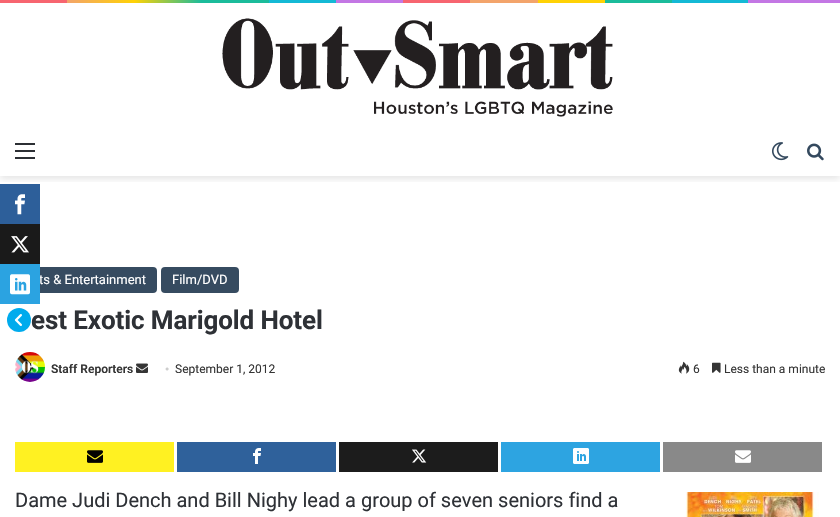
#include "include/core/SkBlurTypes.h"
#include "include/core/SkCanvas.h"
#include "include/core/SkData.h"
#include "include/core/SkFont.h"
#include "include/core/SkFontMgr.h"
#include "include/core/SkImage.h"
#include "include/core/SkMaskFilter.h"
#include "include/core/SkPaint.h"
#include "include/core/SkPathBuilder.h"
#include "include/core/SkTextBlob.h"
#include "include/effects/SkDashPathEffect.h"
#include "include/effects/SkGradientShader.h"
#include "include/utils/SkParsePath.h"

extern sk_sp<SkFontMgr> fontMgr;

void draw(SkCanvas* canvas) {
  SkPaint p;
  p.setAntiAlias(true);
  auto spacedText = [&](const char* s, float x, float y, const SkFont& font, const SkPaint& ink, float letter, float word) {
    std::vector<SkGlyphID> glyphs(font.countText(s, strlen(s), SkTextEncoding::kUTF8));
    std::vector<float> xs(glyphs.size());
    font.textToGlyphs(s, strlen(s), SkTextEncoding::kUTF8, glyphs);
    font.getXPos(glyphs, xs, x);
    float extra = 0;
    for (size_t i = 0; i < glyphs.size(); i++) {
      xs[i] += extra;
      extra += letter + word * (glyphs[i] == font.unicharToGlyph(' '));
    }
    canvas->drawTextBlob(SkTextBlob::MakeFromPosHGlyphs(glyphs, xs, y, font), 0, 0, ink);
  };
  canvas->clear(SK_ColorWHITE);
  {
    const SkColor colors[] = {SkColorSetRGB(247, 101, 112), SkColorSetRGB(247, 101, 112), SkColorSetRGB(243, 164, 107), SkColorSetRGB(255, 210, 5), SkColorSetRGB(27, 188, 155), SkColorSetRGB(27, 188, 155), SkColorSetRGB(20, 185, 213), SkColorSetRGB(20, 185, 213), SkColorSetRGB(195, 119, 228), SkColorSetRGB(195, 119, 228), SkColorSetRGB(247, 101, 112), SkColorSetRGB(247, 101, 112), SkColorSetRGB(243, 164, 107), SkColorSetRGB(243, 164, 107), SkColorSetRGB(255, 210, 5), SkColorSetRGB(255, 210, 5), SkColorSetRGB(27, 188, 155), SkColorSetRGB(27, 188, 155), SkColorSetRGB(20, 185, 213), SkColorSetRGB(20, 185, 213), SkColorSetRGB(195, 119, 228), SkColorSetRGB(195, 119, 228)};
    const float stops[] = {0, 0.08f, 0.08f, 0.16f, 0.24f, 0.32f, 0.32f, 0.4f, 0.4f, 0.48f, 0.48f, 0.56f, 0.56f, 0.64f, 0.64f, 0.72f, 0.72f, 0.8f, 0.8f, 0.89f, 0.89f, 1};
    const SkPoint ends[] = {{0, 1.5f}, {840, 1.5f}};
    p.setShader(SkGradientShader::MakeLinear(ends, colors, stops, 22, SkTileMode::kClamp));
    p.setAlpha(255);
  }
  canvas->drawRect(SkRect::MakeLTRB(0, 0, 840, 3), p);
  canvas->save();
  canvas->clipRect(SkRect::MakeLTRB(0, 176, 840, 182));
  p.setShader(nullptr);
  p.setColor(SkColorSetARGB(26, 0, 0, 0));
  p.setMaskFilter(SkMaskFilter::MakeBlur(kNormal_SkBlurStyle, 3.5f));
  canvas->drawRect(SkRect::MakeLTRB(0, 6, 840, 179), p);
  p.setMaskFilter(nullptr);
  canvas->restore();
  p.setColor(SkColorSetRGB(45, 95, 154));
  canvas->drawRect(SkRect::MakeLTRB(0, 184, 40, 224), p);
  canvas->drawImageRect(SkImages::DeferredFromEncodedData(SkData::MakeFromFileName("images/1.png")), SkRect::MakeLTRB(15, 194, 25, 215), SkSamplingOptions());
  p.setColor(SkColorSetRGB(26, 26, 26));
  canvas->drawRect(SkRect::MakeLTRB(0, 224, 40, 264), p);
  canvas->drawImageRect(SkImages::DeferredFromEncodedData(SkData::MakeFromFileName("images/2.png")), SkRect::MakeLTRB(11, 236, 29, 253), SkSamplingOptions());
  p.setColor(SkColorSetRGB(0, 171, 237));
  canvas->drawCircle(19, 320, 12, p);
  canvas->drawImageRect(SkImages::DeferredFromEncodedData(SkData::MakeFromFileName("images/4.png")), SkRect::MakeLTRB(14, 314, 22, 326), SkSamplingOptions());
  canvas->drawImageRect(SkImages::DeferredFromEncodedData(SkData::MakeFromFileName("images/5.png")), SkRect::MakeLTRB(222, 18, 613, 117), SkSamplingOptions());
  p.setColor(SkColorSetRGB(44, 47, 52));
  canvas->drawRect(SkRect::MakeLTRB(15, 150, 35, 152), p);
  canvas->drawRect(SkRect::MakeLTRB(15, 143, 35, 145), p);
  canvas->drawRect(SkRect::MakeLTRB(15, 157, 35, 159), p);
  canvas->drawImageRect(SkImages::DeferredFromEncodedData(SkData::MakeFromFileName("images/6.png")), SkRect::MakeLTRB(772, 142, 789, 161), SkSamplingOptions());
  canvas->drawImageRect(SkImages::DeferredFromEncodedData(SkData::MakeFromFileName("images/7.png")), SkRect::MakeLTRB(807, 143, 824, 161), SkSamplingOptions());
  p.setColor(SkColorSetRGB(54, 75, 96));
  canvas->drawRoundRect(SkRect::MakeLTRB(15, 267, 157, 293), 4, 4, p);
  canvas->drawRoundRect(SkRect::MakeLTRB(161, 267, 239, 293), 4, 4, p);
  canvas->drawImageRect(SkImages::DeferredFromEncodedData(SkData::MakeFromFileName("images/8.png")), SkRect::MakeLTRB(15, 352, 45, 382), SkSamplingOptions());
  canvas->drawImageRect(SkImages::DeferredFromEncodedData(SkData::MakeFromFileName("images/9.png")), SkRect::MakeLTRB(136, 363, 148, 373), SkSamplingOptions());
  canvas->drawImageRect(SkImages::DeferredFromEncodedData(SkData::MakeFromFileName("images/10.png")), SkRect::MakeLTRB(678, 361, 690, 374), SkSamplingOptions());
  canvas->drawImageRect(SkImages::DeferredFromEncodedData(SkData::MakeFromFileName("images/11.png")), SkRect::MakeLTRB(712, 362, 721, 373), SkSamplingOptions());
  p.setColor(SkColorSetRGB(255, 241, 34));
  canvas->drawRect(SkRect::MakeLTRB(15, 442, 174, 472), p);
  canvas->drawImageRect(SkImages::DeferredFromEncodedData(SkData::MakeFromFileName("images/12.png")), SkRect::MakeLTRB(87, 450, 103, 463), SkSamplingOptions());
  p.setColor(SkColorSetRGB(47, 97, 155));
  canvas->drawRect(SkRect::MakeLTRB(177, 442, 336, 472), p);
  canvas->drawImageRect(SkImages::DeferredFromEncodedData(SkData::MakeFromFileName("images/13.png")), SkRect::MakeLTRB(253, 448, 261, 464), SkSamplingOptions());
  p.setColor(SkColorSetRGB(28, 28, 28));
  canvas->drawRect(SkRect::MakeLTRB(339, 442, 498, 472), p);
  canvas->drawImageRect(SkImages::DeferredFromEncodedData(SkData::MakeFromFileName("images/14.png")), SkRect::MakeLTRB(412, 449, 427, 463), SkSamplingOptions());
  p.setColor(SkColorSetRGB(45, 164, 225));
  canvas->drawRect(SkRect::MakeLTRB(501, 442, 660, 472), p);
  canvas->drawImageRect(SkImages::DeferredFromEncodedData(SkData::MakeFromFileName("images/15.png")), SkRect::MakeLTRB(573, 448, 589, 464), SkSamplingOptions());
  p.setColor(SkColorSetRGB(137, 137, 137));
  canvas->drawRect(SkRect::MakeLTRB(663, 442, 822, 472), p);
  canvas->drawImageRect(SkImages::DeferredFromEncodedData(SkData::MakeFromFileName("images/16.png")), SkRect::MakeLTRB(735, 450, 751, 463), SkSamplingOptions());
  canvas->drawImageRect(SkImages::DeferredFromEncodedData(SkData::MakeFromFileName("images/17.png")), SkRect::MakeLTRB(685, 492, 819, 517), SkSamplingOptions());
  SkFont font1(fontMgr->matchFamilyStyle("Roboto", SkFontStyle::Normal()), 13);
  font1.setSubpixel(true);
  p.setColor(SK_ColorWHITE);
  canvas->drawString("ts & Entertainment", 39, 284, font1, p);
  p.setColor(SkColorSetRGB(43, 163, 225));
  canvas->drawRect(SkRect::MakeLTRB(0, 264, 40, 304), p);
  canvas->drawImageRect(SkImages::DeferredFromEncodedData(SkData::MakeFromFileName("images/3.png")), SkRect::MakeLTRB(10, 274, 30, 295), SkSamplingOptions());
  p.setColor(SK_ColorWHITE);
  canvas->drawString("Film/DVD", 172, 284, font1, p);
  SkFont font2(fontMgr->matchFamilyStyle("Roboto", SkFontStyle::Bold()), 26);
  font2.setSubpixel(true);
  p.setColor(SkColorSetRGB(46, 49, 54));
  spacedText("est Exotic Marigold Hotel", 31, 329, font2, p, -0.1f, 0);
  SkFont font3(fontMgr->matchFamilyStyle("Roboto", SkFontStyle(600, SkFontStyle::kNormal_Width, SkFontStyle::kUpright_Slant)), 12);
  font3.setSubpixel(true);
  p.setColor(SkColorSetRGB(53, 53, 53));
  canvas->drawString("Staff Reporters", 51, 373, font3, p);
  SkFont font4(fontMgr->matchFamilyStyle("Liberation Serif", SkFontStyle::Normal()), 12);
  font4.setSubpixel(true);
  p.setColor(SkColorSetRGB(205, 205, 205));
  canvas->drawString("•", 165, 373, font4, p);
  SkFont font5(fontMgr->matchFamilyStyle("Roboto", SkFontStyle::Normal()), 12);
  font5.setSubpixel(true);
  p.setColor(SkColorSetRGB(53, 53, 53));
  canvas->drawString("September 1, 2012", 175, 373, font5, p);
  canvas->drawString("6", 693, 373, font5, p);
  canvas->drawString("Less than a minute", 724, 373, font5, p);
  SkFont font6(fontMgr->matchFamilyStyle("Roboto", SkFontStyle::Normal()), 20);
  font6.setSubpixel(true);
  p.setColor(SkColorSetRGB(46, 49, 54));
  canvas->drawString("Dame Judi Dench and Bill Nighy lead a group of seven seniors find a", 15, 507, font6, p);
}
